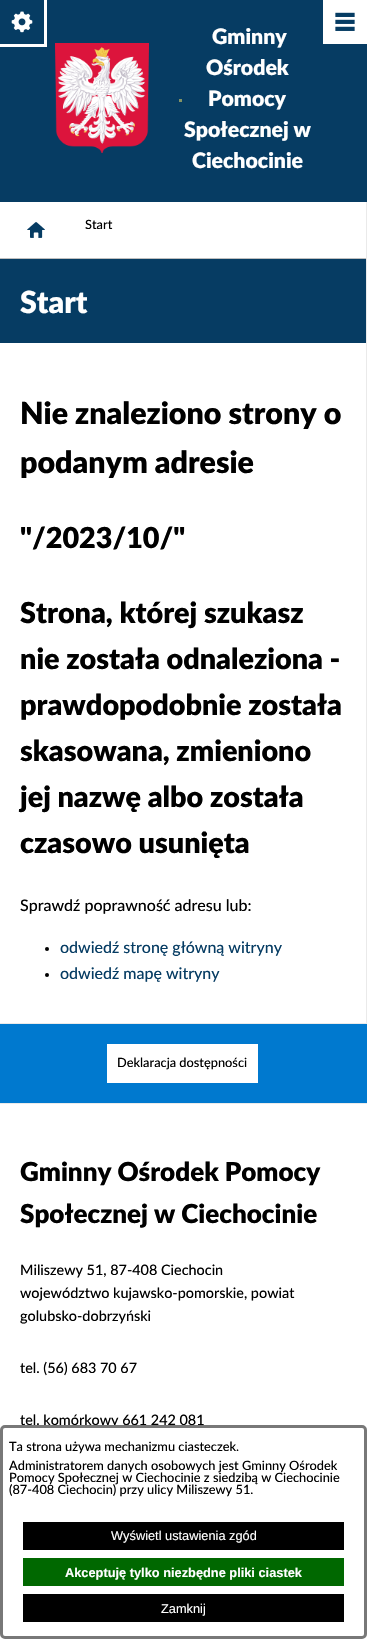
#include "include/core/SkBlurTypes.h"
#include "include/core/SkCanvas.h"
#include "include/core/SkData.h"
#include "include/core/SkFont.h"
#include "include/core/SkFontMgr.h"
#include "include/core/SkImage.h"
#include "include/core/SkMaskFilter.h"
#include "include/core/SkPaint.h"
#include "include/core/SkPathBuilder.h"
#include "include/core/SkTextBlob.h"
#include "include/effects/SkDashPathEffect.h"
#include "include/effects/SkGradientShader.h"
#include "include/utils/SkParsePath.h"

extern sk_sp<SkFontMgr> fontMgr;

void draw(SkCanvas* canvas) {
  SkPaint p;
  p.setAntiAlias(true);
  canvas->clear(SK_ColorWHITE);
  p.setColor(SkColorSetRGB(6, 60, 99));
  canvas->drawRect(SkRect::MakeLTRB(0, 0, 367, 202), p);
  p.setColor(SK_ColorWHITE);
  canvas->drawRect(SkRect::MakeLTRB(44, 0, 47, 47), p);
  canvas->drawRect(SkRect::MakeLTRB(0, 44, 47, 47), p);
  canvas->drawImageRect(SkImages::DeferredFromEncodedData(SkData::MakeFromFileName("images/1.png")), SkRect::MakeLTRB(11, 11, 33, 33), SkSamplingOptions());
  canvas->drawImageRect(SkImages::DeferredFromEncodedData(SkData::MakeFromFileName("images/2.png")), SkRect::MakeLTRB(55, 43, 149, 153), SkSamplingOptions());
  p.setColor(SkColorSetRGB(132, 147, 101));
  canvas->drawRect(SkRect::MakeLTRB(179, 99, 182, 102), p);
  p.setColor(SK_ColorWHITE);
  canvas->drawRect(SkRect::MakeLTRB(323, 0, 367, 44), p);
  canvas->drawImageRect(SkImages::DeferredFromEncodedData(SkData::MakeFromFileName("images/3.png")), SkRect::MakeLTRB(335, 12, 355, 31), SkSamplingOptions());
  p.setColor(SkColorSetRGB(234, 234, 234));
  canvas->drawRect(SkRect::MakeLTRB(366, 202, 367, 1023), p);
  p.setColor(SkColorSetRGB(190, 190, 190));
  canvas->drawRect(SkRect::MakeLTRB(0, 258, 366, 259), p);
  canvas->drawImageRect(SkImages::DeferredFromEncodedData(SkData::MakeFromFileName("images/4.png")), SkRect::MakeLTRB(27, 222, 45, 238), SkSamplingOptions());
  p.setColor(SkColorSetRGB(6, 60, 99));
  canvas->drawRect(SkRect::MakeLTRB(0, 259, 366, 343), p);
  p.setColor(SK_ColorBLACK);
  canvas->drawCircle(47, 949, 2, p);
  canvas->drawCircle(47, 975, 2, p);
  p.setColor(SkColorSetRGB(0, 121, 207));
  canvas->drawRect(SkRect::MakeLTRB(0, 1024, 367, 1103), p);
  p.setColor(SkColorSetRGB(234, 234, 234));
  canvas->drawRect(SkRect::MakeLTRB(0, 1023, 367, 1024), p);
  p.setColor(SK_ColorWHITE);
  canvas->drawRect(SkRect::MakeLTRB(107, 1044, 258, 1083), p);
  p.setColor(SkColorSetRGB(234, 234, 234));
  canvas->drawRect(SkRect::MakeLTRB(0, 1103, 367, 1104), p);
  SkFont font1(fontMgr->matchFamilyStyle("Lato", SkFontStyle(900, SkFontStyle::kNormal_Width, SkFontStyle::kUpright_Slant)), 21.25f);
  font1.setSubpixel(true);
  p.setColor(SK_ColorWHITE);
  canvas->drawString("Gminny", 212, 44, font1, p);
  canvas->drawString("Ośrodek", 206, 75, font1, p);
  canvas->drawString("Pomocy", 208, 106, font1, p);
  canvas->drawString("Społecznej w", 184, 137, font1, p);
  canvas->drawString("Ciechocinie", 192, 168, font1, p);
  SkFont font2(fontMgr->matchFamilyStyle("Lato", SkFontStyle(500, SkFontStyle::kNormal_Width, SkFontStyle::kUpright_Slant)), 12.8f);
  font2.setSubpixel(true);
  p.setColor(SK_ColorBLACK);
  canvas->drawString("Start", 85, 229, font2, p);
  SkFont font3(fontMgr->matchFamilyStyle("Lato", SkFontStyle(900, SkFontStyle::kNormal_Width, SkFontStyle::kUpright_Slant)), 30.4f);
  font3.setSubpixel(true);
  p.setColor(SK_ColorWHITE);
  canvas->drawString("Start", 20, 313, font3, p);
  p.setColor(SK_ColorBLACK);
  canvas->drawString("Nie znaleziono strony o", 20, 424, font3, p);
  canvas->drawString("podanym adresie", 20, 473, font3, p);
  SkFont font4(fontMgr->matchFamilyStyle("Lato", SkFontStyle(900, SkFontStyle::kNormal_Width, SkFontStyle::kUpright_Slant)), 28.75f);
  font4.setSubpixel(true);
  canvas->drawString("\"/2023/10/\"", 20, 548, font4, p);
  canvas->drawString("Strona, której szukasz", 20, 623, font4, p);
  canvas->drawString("nie została odnaleziona -", 20, 669, font4, p);
  canvas->drawString("prawdopodobnie została", 20, 715, font4, p);
  canvas->drawString("skasowana, zmieniono", 20, 761, font4, p);
  canvas->drawString("jej nazwę albo została", 20, 807, font4, p);
  canvas->drawString("czasowo usunięta", 20, 853, font4, p);
  SkFont font5(fontMgr->matchFamilyStyle("Lato", SkFontStyle(500, SkFontStyle::kNormal_Width, SkFontStyle::kUpright_Slant)), 16);
  font5.setSubpixel(true);
  canvas->drawString("Sprawdź poprawność adresu lub:", 20, 911, font5, p);
  p.setColor(SkColorSetRGB(6, 60, 99));
  canvas->drawString("odwiedź stronę główną witryny", 60, 953, font5, p);
  canvas->drawString("odwiedź mapę witryny", 60, 979, font5, p);
  p.setColor(SK_ColorBLACK);
  canvas->drawString("Deklaracja dostępności", 117, 1067, font2, p);
  SkFont font6(fontMgr->matchFamilyStyle("Lato", SkFontStyle(900, SkFontStyle::kNormal_Width, SkFontStyle::kUpright_Slant)), 26);
  font6.setSubpixel(true);
  canvas->drawString("Gminny Ośrodek Pomocy", 20, 1181, font6, p);
  canvas->drawString("Społecznej w Ciechocinie", 20, 1223, font6, p);
  SkFont font7(fontMgr->matchFamilyStyle("Lato", SkFontStyle(500, SkFontStyle::kNormal_Width, SkFontStyle::kUpright_Slant)), 14.4f);
  font7.setSubpixel(true);
  canvas->drawString("Miliszewy 51, 87-408 Ciechocin", 20, 1275, font7, p);
  canvas->drawString("województwo kujawsko-pomorskie, powiat", 20, 1298, font7, p);
  canvas->drawString("golubsko-dobrzyński", 20, 1321, font7, p);
  canvas->drawString("tel. (56) 683 70 67", 20, 1373, font7, p);
  canvas->drawString("tel. komórkowy 661 242 081", 20, 1425, font7, p);
  p.setColor(SK_ColorWHITE);
  canvas->drawRoundRect(SkRect::MakeLTRB(1.5f, 1426.5f, 365.5f, 1637.5f), 3.5f, 3.5f, p);
  p.setStyle(SkPaint::kStroke_Style);
  p.setStrokeWidth(3);
  p.setColor(SkColorSetRGB(120, 120, 120));
  canvas->drawRoundRect(SkRect::MakeLTRB(1.5f, 1426.5f, 365.5f, 1637.5f), 3.5f, 3.5f, p);
  p.setStyle(SkPaint::kFill_Style);
  p.setColor(SK_ColorBLACK);
  canvas->drawString("Ta strona używa mechanizmu ciasteczek.", 9, 1451, font2, p);
  canvas->drawString("Administratorem danych osobowych jest Gminny Ośrodek", 9, 1470, font2, p);
  canvas->drawString("Pomocy Społecznej w Ciechocinie z siedzibą w Ciechocinie", 9, 1482, font2, p);
  canvas->drawString("(87-408 Ciechocin) przy ulicy Miliszewy 51.", 9, 1494, font2, p);
  canvas->drawRect(SkRect::MakeLTRB(23, 1522, 344, 1550), p);
  SkFont font8(fontMgr->matchFamilyStyle("Liberation Sans", SkFontStyle::Normal()), 12.8f);
  font8.setSubpixel(true);
  p.setColor(SK_ColorWHITE);
  canvas->drawString("Wyświetl ustawienia zgód", 111, 1540, font8, p);
  p.setColor(SkColorSetRGB(0, 104, 0));
  canvas->drawRect(SkRect::MakeLTRB(23, 1558, 344, 1586), p);
  SkFont font9(fontMgr->matchFamilyStyle("Liberation Sans", SkFontStyle::Bold()), 12.8f);
  font9.setSubpixel(true);
  p.setColor(SK_ColorWHITE);
  canvas->drawString("Akceptuję tylko niezbędne pliki ciastek", 65, 1577, font9, p);
  p.setColor(SK_ColorBLACK);
  canvas->drawRect(SkRect::MakeLTRB(23, 1594, 344, 1622), p);
  p.setColor(SK_ColorWHITE);
  canvas->drawString("Zamknij", 161, 1613, font8, p);
}
